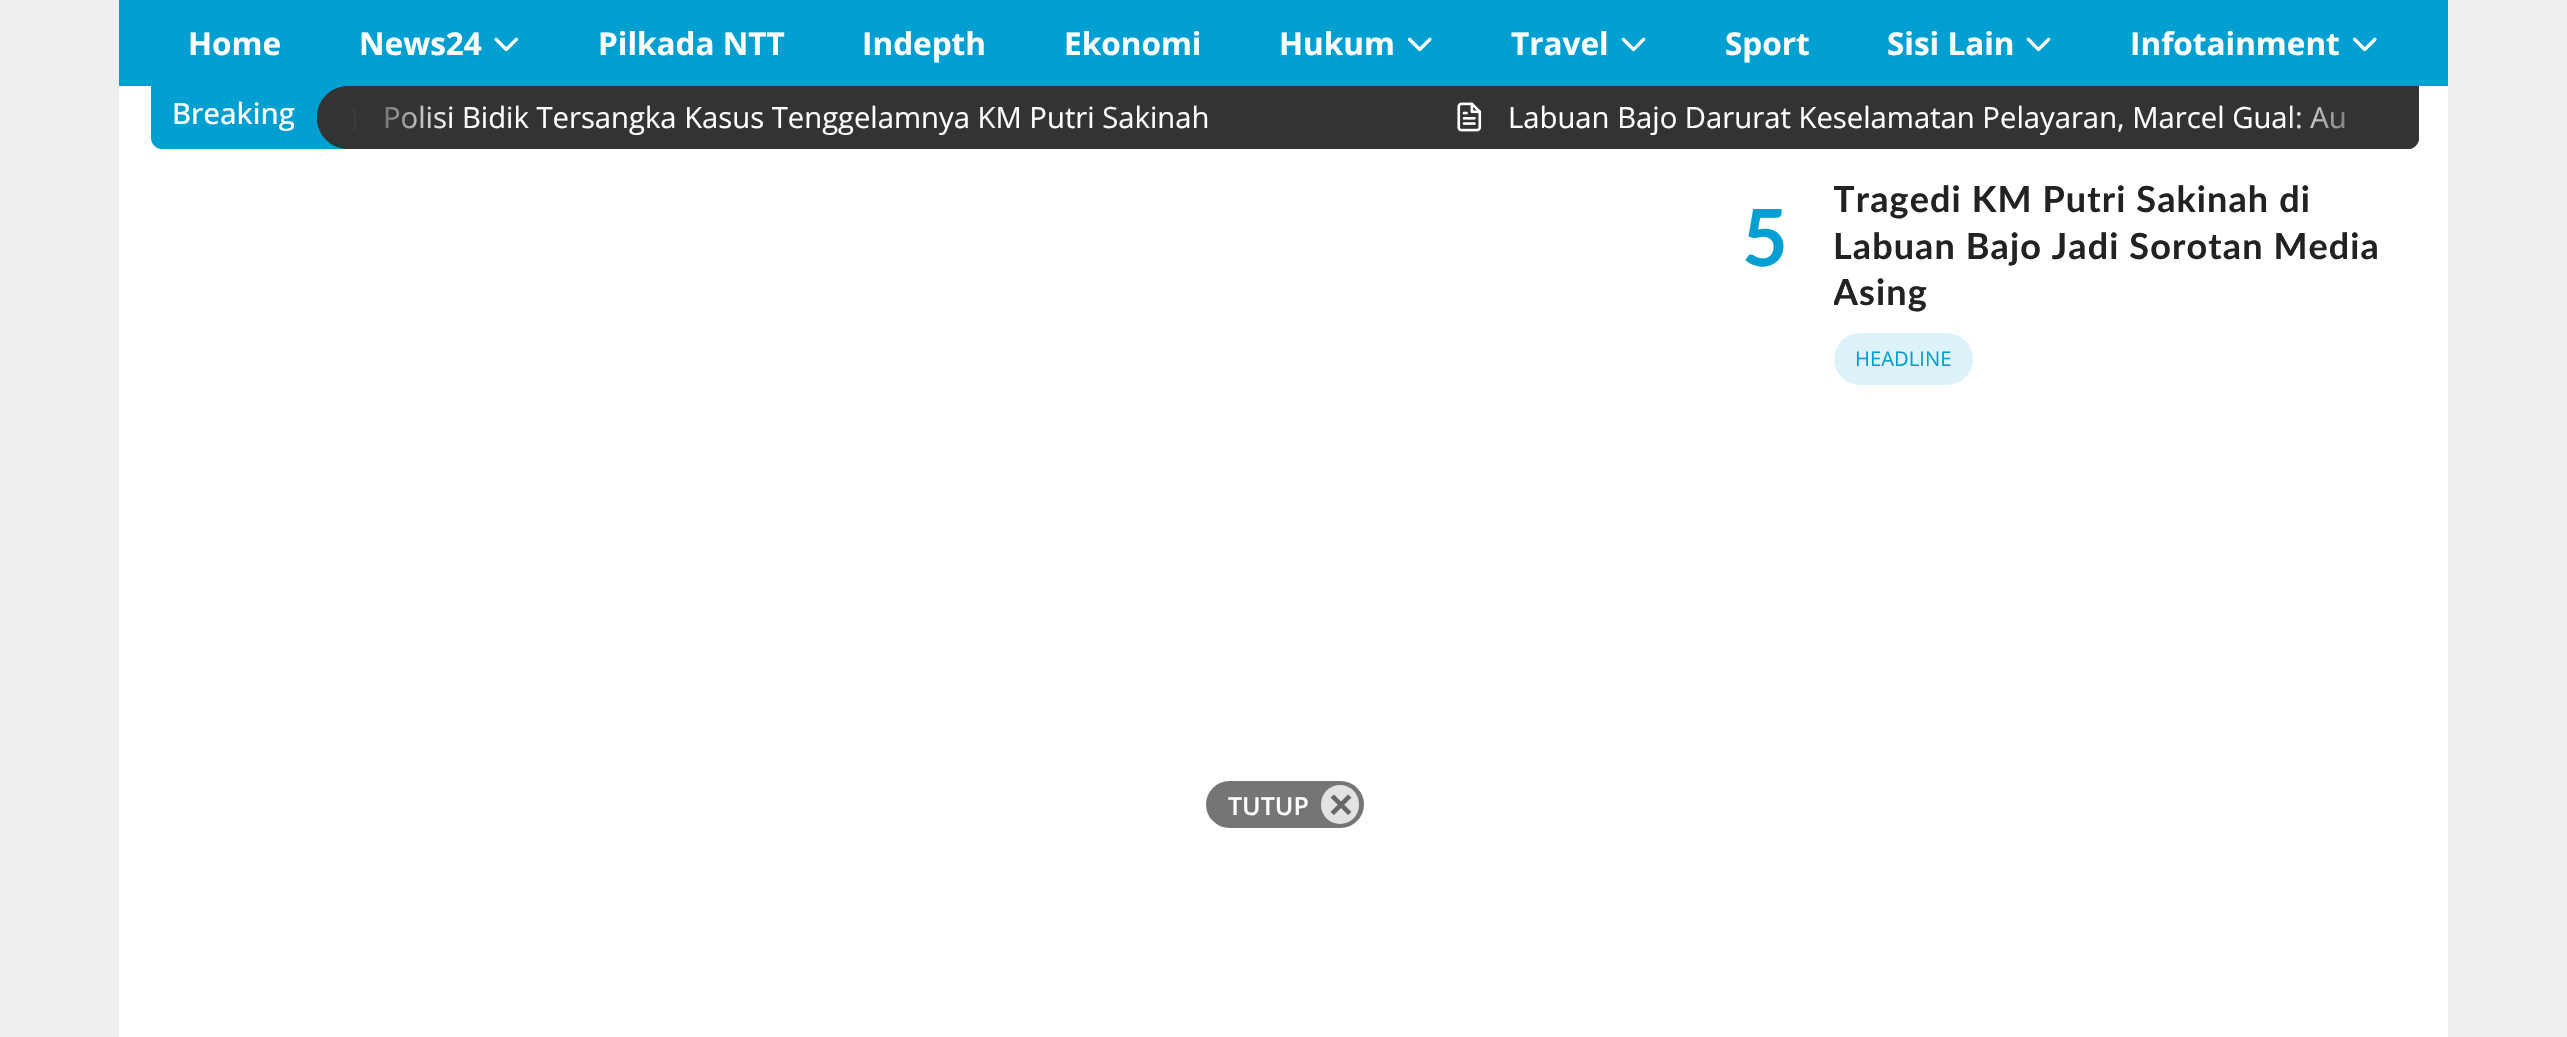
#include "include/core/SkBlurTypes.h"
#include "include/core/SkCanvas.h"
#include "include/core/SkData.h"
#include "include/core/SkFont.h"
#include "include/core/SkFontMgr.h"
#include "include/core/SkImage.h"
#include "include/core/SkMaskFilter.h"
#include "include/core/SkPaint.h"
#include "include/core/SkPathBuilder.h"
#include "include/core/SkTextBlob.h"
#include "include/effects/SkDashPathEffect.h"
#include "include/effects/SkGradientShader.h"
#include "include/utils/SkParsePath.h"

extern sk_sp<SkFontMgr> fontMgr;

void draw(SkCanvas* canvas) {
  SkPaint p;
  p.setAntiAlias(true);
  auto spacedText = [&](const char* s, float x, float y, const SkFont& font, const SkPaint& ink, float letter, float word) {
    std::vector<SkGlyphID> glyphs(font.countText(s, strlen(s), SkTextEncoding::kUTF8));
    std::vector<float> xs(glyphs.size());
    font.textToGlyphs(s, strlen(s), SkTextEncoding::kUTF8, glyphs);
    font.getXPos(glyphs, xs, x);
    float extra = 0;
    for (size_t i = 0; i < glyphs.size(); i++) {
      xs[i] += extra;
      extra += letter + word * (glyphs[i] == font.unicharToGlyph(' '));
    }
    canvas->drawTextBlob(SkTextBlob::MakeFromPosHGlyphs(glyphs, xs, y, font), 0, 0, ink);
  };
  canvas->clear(SK_ColorWHITE);
  p.setColor(SkColorSetRGB(238, 238, 238));
  canvas->drawRect(SkRect::MakeLTRB(0, 0, 119, 1037), p);
  p.setColor(SkColorSetRGB(0, 159, 209));
  canvas->drawRect(SkRect::MakeLTRB(119, 0, 2448, 86), p);
  canvas->drawImageRect(SkImages::DeferredFromEncodedData(SkData::MakeFromFileName("images/1.png")), SkRect::MakeLTRB(494, 37, 518, 52), SkSamplingOptions());
  canvas->drawImageRect(SkImages::DeferredFromEncodedData(SkData::MakeFromFileName("images/2.png")), SkRect::MakeLTRB(1407, 37, 1432, 52), SkSamplingOptions());
  canvas->drawImageRect(SkImages::DeferredFromEncodedData(SkData::MakeFromFileName("images/3.png")), SkRect::MakeLTRB(1621, 37, 1646, 52), SkSamplingOptions());
  canvas->drawImageRect(SkImages::DeferredFromEncodedData(SkData::MakeFromFileName("images/3.png")), SkRect::MakeLTRB(2026, 37, 2051, 52), SkSamplingOptions());
  canvas->drawImageRect(SkImages::DeferredFromEncodedData(SkData::MakeFromFileName("images/2.png")), SkRect::MakeLTRB(2352, 37, 2377, 52), SkSamplingOptions());
  canvas->drawPath(SkPathBuilder().moveTo(151, 86).lineTo(362, 86).lineTo(362, 149).lineTo(162, 149).cubicTo(156, 149, 151, 144, 151, 138).close().detach(), p);
  p.setColor(SkColorSetRGB(51, 51, 51));
  canvas->drawPath(SkPathBuilder().moveTo(348.5f, 86).lineTo(2419, 86).lineTo(2419, 138).cubicTo(2419, 144, 2414, 149, 2408, 149).lineTo(348.5f, 149).cubicTo(331, 149, 317, 135, 317, 117.5f).cubicTo(317, 100, 331, 86, 348.5f, 86).close().detach(), p);
  canvas->drawImageRect(SkImages::DeferredFromEncodedData(SkData::MakeFromFileName("images/4.png")), SkRect::MakeLTRB(351, 106, 357, 132), SkSamplingOptions());
  canvas->drawImageRect(SkImages::DeferredFromEncodedData(SkData::MakeFromFileName("images/5.png")), SkRect::MakeLTRB(1457, 102, 1482, 132), SkSamplingOptions());
  p.setColor(SkColorSetRGB(238, 238, 238));
  canvas->drawRect(SkRect::MakeLTRB(2448, 0, 2567, 1037), p);
  p.setColor(SkColorSetRGB(222, 243, 249));
  canvas->drawRoundRect(SkRect::MakeLTRB(1834, 333, 1973, 385), 26, 26, p);
  p.setColor(SkColorSetRGB(118, 117, 117));
  canvas->drawRoundRect(SkRect::MakeLTRB(1206, 781, 1364, 828), 23.5f, 23.5f, p);
  p.setColor(SkColorSetRGB(227, 226, 226));
  canvas->drawRoundRect(SkRect::MakeLTRB(1321, 785, 1359, 824), 19, 19, p);
  p.setColor(SkColorSetRGB(102, 102, 102));
  canvas->drawPath(SkPathBuilder().moveTo(1330.5f, 812).lineTo(1348, 794.5f).lineTo(1351.5f, 797.5f).lineTo(1334, 815).close().detach(), p);
  canvas->drawPath(SkPathBuilder().moveTo(1334, 794.5f).lineTo(1351.5f, 812).lineTo(1348, 815).lineTo(1330.5f, 797.5f).close().detach(), p);
  SkFont font1(fontMgr->matchFamilyStyle("Open Sans", SkFontStyle::Bold()), 31.5f);
  font1.setSubpixel(true);
  p.setColor(SK_ColorWHITE);
  canvas->drawString("Home", 188, 55, font1, p);
  canvas->drawString("News24", 359, 55, font1, p);
  canvas->drawString("Pilkada NTT", 598, 55, font1, p);
  canvas->drawString("Indepth", 862, 55, font1, p);
  canvas->drawString("Ekonomi", 1064, 55, font1, p);
  canvas->drawString("Hukum", 1279, 55, font1, p);
  canvas->drawString("Travel", 1511, 55, font1, p);
  canvas->drawString("Sport", 1725, 55, font1, p);
  canvas->drawString("Sisi Lain", 1887, 55, font1, p);
  canvas->drawString("Infotainment", 2130, 55, font1, p);
  SkFont font2(fontMgr->matchFamilyStyle("Open Sans", SkFontStyle(500, SkFontStyle::kNormal_Width, SkFontStyle::kUpright_Slant)), 29.25f);
  font2.setSubpixel(true);
  canvas->drawString("Breaking", 172, 124, font2, p);
  SkFont font3(fontMgr->matchFamilyStyle("Open Sans", SkFontStyle::Normal()), 29.25f);
  font3.setSubpixel(true);
  canvas->drawString("Polisi Bidik Tersangka Kasus Tenggelamnya KM Putri Sakinah", 383, 128, font3, p);
  {
    const SkColor colors[] = {SkColorSetRGB(51, 51, 51), SkColorSetARGB(0, 51, 51, 51)};
    const float stops[] = {0.25f, 1};
    const SkPoint ends[] = {{317, 117}, {452, 117}};
    p.setShader(SkGradientShader::MakeLinear(ends, colors, stops, 2, SkTileMode::kClamp));
    p.setAlpha(255);
  }
  canvas->drawPath(SkPathBuilder().moveTo(348.5f, 86).lineTo(452, 86).lineTo(452, 149).lineTo(348.5f, 149).cubicTo(331, 149, 317, 135, 317, 117.5f).cubicTo(317, 100, 331, 86, 348.5f, 86).close().detach(), p);
  p.setShader(nullptr);
  p.setColor(SK_ColorWHITE);
  canvas->drawString("Labuan Bajo Darurat Keselamatan Pelayaran, Marcel Gual: Au", 1508, 128, font3, p);
  {
    const SkColor colors[] = {SkColorSetRGB(51, 51, 51), SkColorSetARGB(0, 51, 51, 51)};
    const float stops[] = {0.25f, 1};
    const SkPoint ends[] = {{2419, 117}, {2284, 117}};
    p.setShader(SkGradientShader::MakeLinear(ends, colors, stops, 2, SkTileMode::kClamp));
    p.setAlpha(255);
  }
  canvas->drawPath(SkPathBuilder().moveTo(2284, 86).lineTo(2419, 86).lineTo(2419, 138).cubicTo(2419, 144, 2414, 149, 2408, 149).lineTo(2284, 149).close().detach(), p);
  SkFont font4(fontMgr->matchFamilyStyle("Lato", SkFontStyle::Bold()), 79);
  font4.setSubpixel(true);
  p.setShader(nullptr);
  p.setColor(SkColorSetRGB(0, 159, 209));
  canvas->drawString("5", 1742, 266, font4, p);
  canvas->save();
  canvas->clipRect(SkRect::MakeLTRB(1834, 176, 2419, 317));
  SkFont font5(fontMgr->matchFamilyStyle("Lato", SkFontStyle::Bold()), 36);
  font5.setSubpixel(true);
  p.setColor(SkColorSetRGB(34, 34, 34));
  spacedText("Tragedi KM Putri Sakinah di", 1833, 212, font5, p, 1.1f, 0);
  canvas->restore();
  spacedText("Labuan Bajo Jadi Sorotan Media", 1833, 259, font5, p, 1.1f, 0);
  canvas->save();
  canvas->clipRect(SkRect::MakeLTRB(1834, 176, 2419, 317));
  spacedText("Asing", 1833, 305, font5, p, 1.1f, 0);
  canvas->restore();
  SkFont font6(fontMgr->matchFamilyStyle("Open Sans", SkFontStyle::Normal()), 20.25f);
  font6.setSubpixel(true);
  p.setColor(SkColorSetRGB(0, 159, 209));
  canvas->drawString("HEADLINE", 1855, 366, font6, p);
  SkFont font7(fontMgr->matchFamilyStyle("Open Sans", SkFontStyle(600, SkFontStyle::kNormal_Width, SkFontStyle::kUpright_Slant)), 25);
  font7.setSubpixel(true);
  p.setColor(SK_ColorWHITE);
  canvas->drawString("TUTUP", 1228, 815, font7, p);
}
